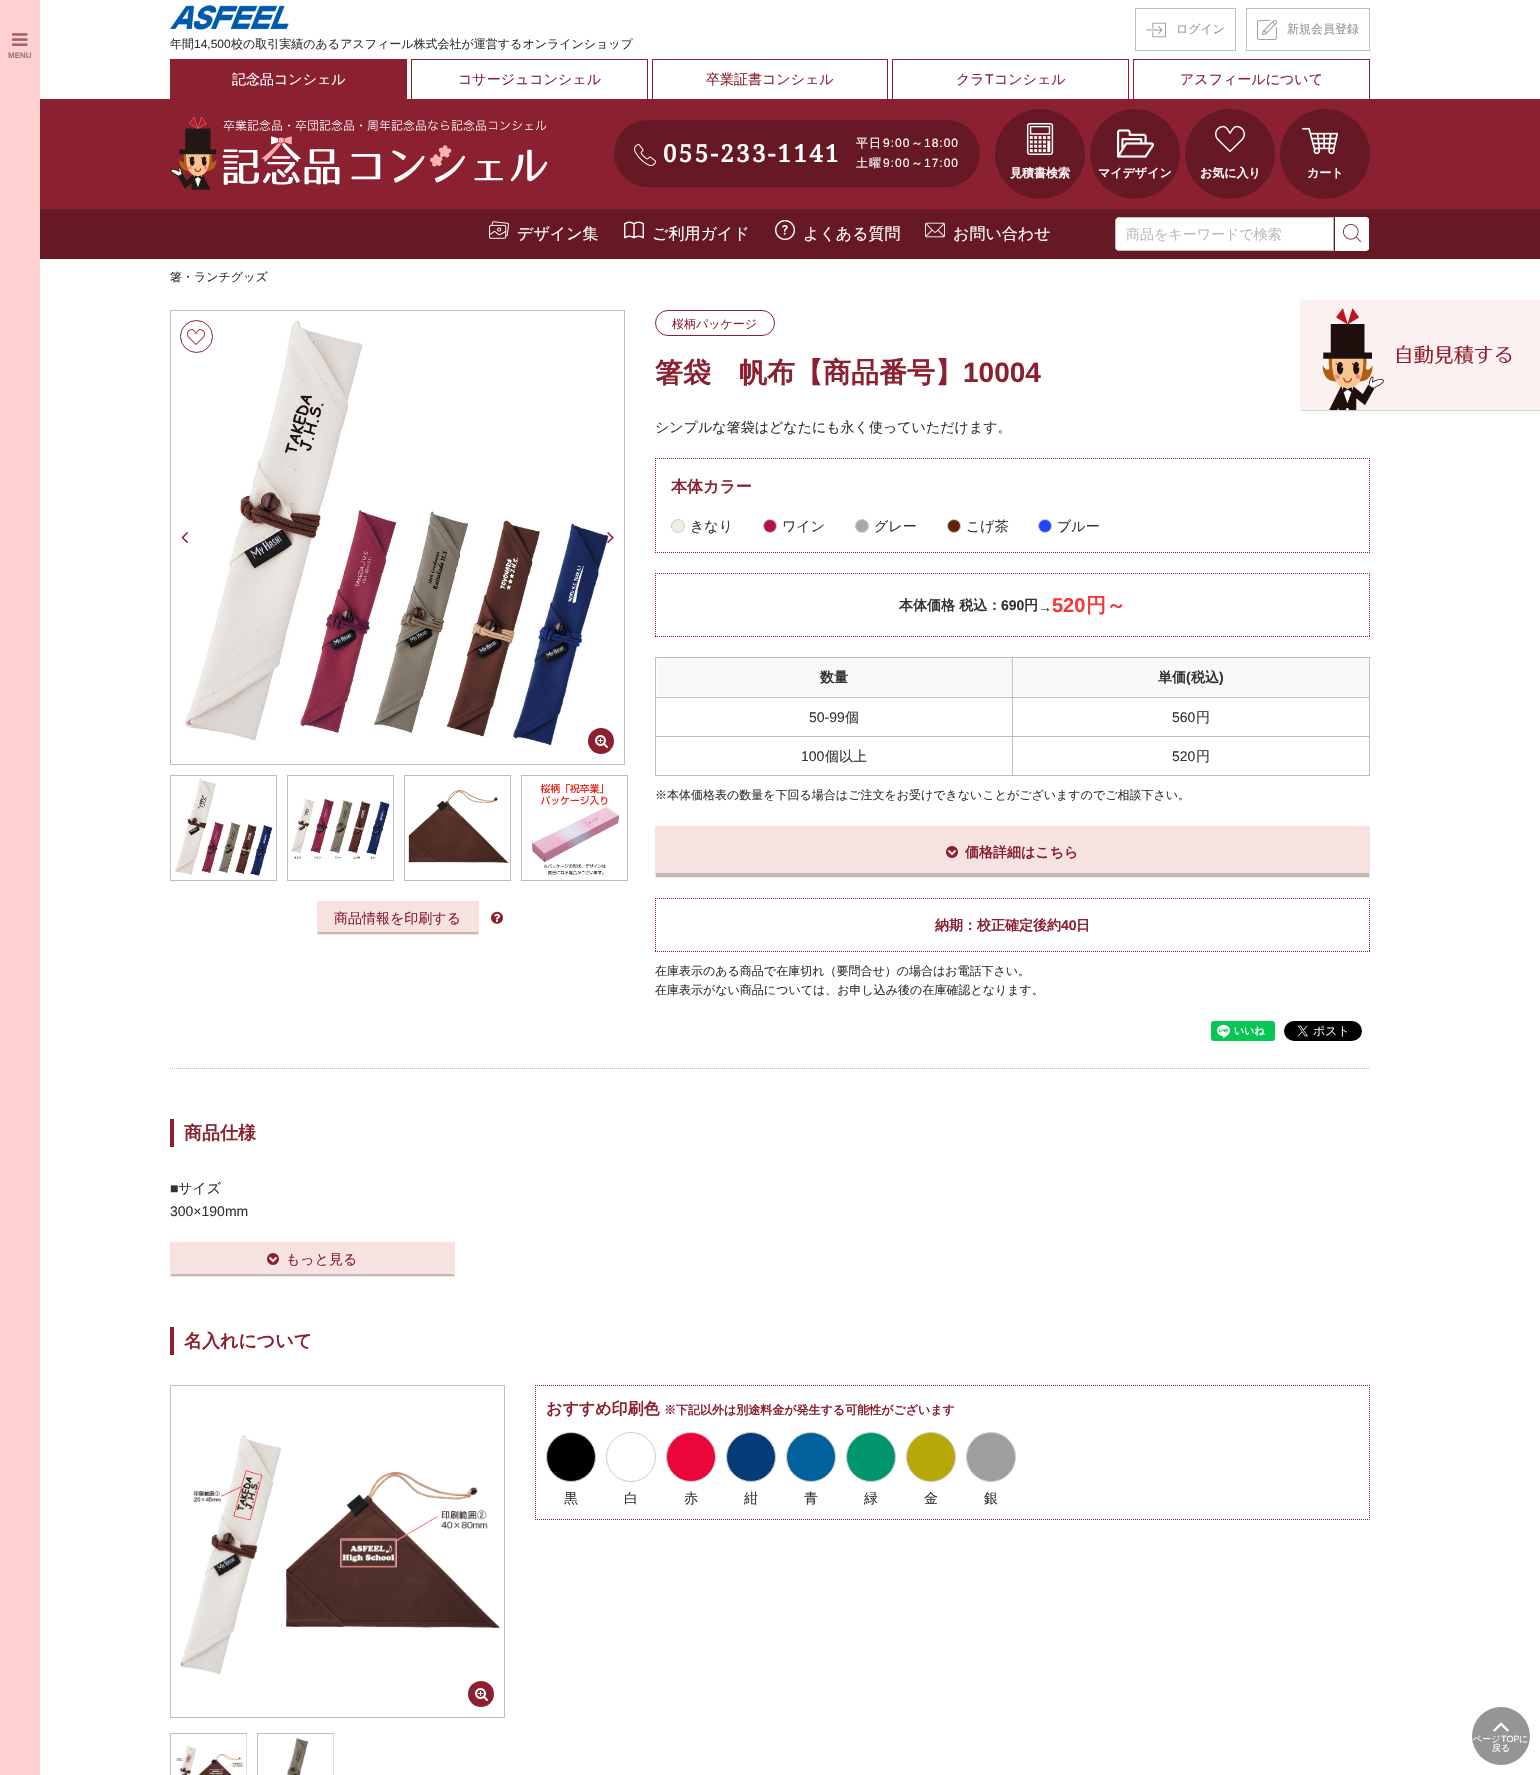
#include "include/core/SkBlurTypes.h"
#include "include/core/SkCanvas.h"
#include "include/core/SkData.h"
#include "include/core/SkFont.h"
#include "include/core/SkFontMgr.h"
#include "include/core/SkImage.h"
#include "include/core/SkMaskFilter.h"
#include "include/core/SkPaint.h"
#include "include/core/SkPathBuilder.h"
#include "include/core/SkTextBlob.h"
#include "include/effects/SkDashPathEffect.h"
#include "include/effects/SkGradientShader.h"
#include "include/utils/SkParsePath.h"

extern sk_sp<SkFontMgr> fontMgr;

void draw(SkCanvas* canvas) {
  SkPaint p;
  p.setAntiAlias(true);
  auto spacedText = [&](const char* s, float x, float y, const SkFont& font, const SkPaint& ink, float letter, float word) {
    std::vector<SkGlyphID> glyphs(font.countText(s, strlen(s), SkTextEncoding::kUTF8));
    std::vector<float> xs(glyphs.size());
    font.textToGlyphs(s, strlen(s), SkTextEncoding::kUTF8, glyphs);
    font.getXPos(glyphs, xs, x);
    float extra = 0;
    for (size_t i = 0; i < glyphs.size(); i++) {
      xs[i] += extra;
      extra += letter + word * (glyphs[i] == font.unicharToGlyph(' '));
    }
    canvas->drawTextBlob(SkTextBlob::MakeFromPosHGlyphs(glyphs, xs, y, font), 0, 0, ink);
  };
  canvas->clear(SK_ColorWHITE);
  p.setStyle(SkPaint::kStroke_Style);
  p.setStrokeWidth(1);
  p.setColor(SkColorSetRGB(191, 191, 191));
  canvas->drawRect(SkRect::MakeLTRB(1135.5f, 8.5f, 1235.5f, 50.5f), p);
  canvas->drawImageRect(SkImages::DeferredFromEncodedData(SkData::MakeFromFileName("images/1.png")), SkRect::MakeLTRB(1146, 22, 1166, 38), SkSamplingOptions());
  canvas->drawRect(SkRect::MakeLTRB(1246.5f, 8.5f, 1369.5f, 50.5f), p);
  canvas->drawImageRect(SkImages::DeferredFromEncodedData(SkData::MakeFromFileName("images/2.png")), SkRect::MakeLTRB(1257, 20, 1277, 40), SkSamplingOptions());
  canvas->drawImageRect(SkImages::DeferredFromEncodedData(SkData::MakeFromFileName("images/3.png")), SkRect::MakeLTRB(170, 5, 289, 30), SkSamplingOptions());
  p.setStyle(SkPaint::kFill_Style);
  p.setColor(SkColorSetRGB(255, 208, 208));
  canvas->drawRect(SkRect::MakeLTRB(0, 0, 40, 1775), p);
  canvas->drawImageRect(SkImages::DeferredFromEncodedData(SkData::MakeFromFileName("images/4.png")), SkRect::MakeLTRB(12, 33, 28, 46), SkSamplingOptions());
  p.setColor(SkColorSetRGB(138, 32, 48));
  canvas->drawRect(SkRect::MakeLTRB(170, 59, 407, 99), p);
  canvas->drawRect(SkRect::MakeLTRB(411, 59, 648, 60), p);
  canvas->drawRect(SkRect::MakeLTRB(647, 59, 648, 99), p);
  canvas->drawRect(SkRect::MakeLTRB(411, 59, 412, 99), p);
  canvas->drawRect(SkRect::MakeLTRB(652, 59, 888, 60), p);
  canvas->drawRect(SkRect::MakeLTRB(887, 59, 888, 99), p);
  canvas->drawRect(SkRect::MakeLTRB(652, 59, 653, 99), p);
  canvas->drawRect(SkRect::MakeLTRB(892, 59, 1129, 60), p);
  canvas->drawRect(SkRect::MakeLTRB(1128, 59, 1129, 99), p);
  canvas->drawRect(SkRect::MakeLTRB(892, 59, 893, 99), p);
  canvas->drawRect(SkRect::MakeLTRB(1133, 59, 1370, 60), p);
  canvas->drawRect(SkRect::MakeLTRB(1369, 59, 1370, 99), p);
  canvas->drawRect(SkRect::MakeLTRB(1133, 59, 1134, 99), p);
  canvas->drawRect(SkRect::MakeLTRB(40, 99, 1540, 209), p);
  canvas->drawImageRect(SkImages::DeferredFromEncodedData(SkData::MakeFromFileName("images/5.png")), SkRect::MakeLTRB(170, 117, 548, 190), SkSamplingOptions());
  p.setColor(SkColorSetRGB(102, 25, 37));
  canvas->drawRoundRect(SkRect::MakeLTRB(614, 120, 980, 187), 33.5f, 33.5f, p);
  canvas->drawImageRect(SkImages::DeferredFromEncodedData(SkData::MakeFromFileName("images/6.png")), SkRect::MakeLTRB(634, 144, 656, 166), SkSamplingOptions());
  canvas->drawCircle(1040, 154, 45, p);
  canvas->drawImageRect(SkImages::DeferredFromEncodedData(SkData::MakeFromFileName("images/7.png")), SkRect::MakeLTRB(1026, 123, 1054, 155), SkSamplingOptions());
  canvas->drawCircle(1135, 154, 45, p);
  canvas->drawImageRect(SkImages::DeferredFromEncodedData(SkData::MakeFromFileName("images/8.png")), SkRect::MakeLTRB(1117, 129, 1154, 158), SkSamplingOptions());
  canvas->drawCircle(1230, 154, 45, p);
  canvas->drawImageRect(SkImages::DeferredFromEncodedData(SkData::MakeFromFileName("images/9.png")), SkRect::MakeLTRB(1215, 125, 1245, 153), SkSamplingOptions());
  canvas->drawCircle(1325, 154, 45, p);
  canvas->drawImageRect(SkImages::DeferredFromEncodedData(SkData::MakeFromFileName("images/10.png")), SkRect::MakeLTRB(1302, 127, 1338, 155), SkSamplingOptions());
  canvas->drawRect(SkRect::MakeLTRB(40, 209, 1540, 259), p);
  canvas->drawImageRect(SkImages::DeferredFromEncodedData(SkData::MakeFromFileName("images/11.png")), SkRect::MakeLTRB(489, 221, 509, 239), SkSamplingOptions());
  canvas->drawImageRect(SkImages::DeferredFromEncodedData(SkData::MakeFromFileName("images/12.png")), SkRect::MakeLTRB(624, 221, 644, 239), SkSamplingOptions());
  canvas->drawImageRect(SkImages::DeferredFromEncodedData(SkData::MakeFromFileName("images/13.png")), SkRect::MakeLTRB(775, 220, 795, 240), SkSamplingOptions());
  canvas->drawImageRect(SkImages::DeferredFromEncodedData(SkData::MakeFromFileName("images/14.png")), SkRect::MakeLTRB(925, 222, 945, 238), SkSamplingOptions());
  p.setColor(SK_ColorWHITE);
  canvas->drawPath(SkPathBuilder().moveTo(1120, 217).lineTo(1334, 217).lineTo(1334, 251).lineTo(1120, 251).cubicTo(1117, 251, 1115, 249, 1115, 246).lineTo(1115, 222).cubicTo(1115, 219, 1117, 217, 1120, 217).close().detach(), p);
  p.setColor(SkColorSetRGB(191, 191, 191));
  canvas->drawPath(SkPathBuilder(SkPathFillType::kEvenOdd).moveTo(1115, 222).lineTo(1115, 246).cubicTo(1115, 247, 1115, 248, 1116, 249).lineTo(1116, 219).close().moveTo(1120, 217).lineTo(1117, 218).lineTo(1333, 218).lineTo(1333, 250).lineTo(1117, 250).cubicTo(1118, 251, 1119, 251, 1120, 251).lineTo(1334, 251).lineTo(1334, 217).close().detach(), p);
  canvas->save();
  canvas->clipPath(SkPathBuilder().moveTo(1120, 217).lineTo(1365, 217).cubicTo(1368, 217, 1370, 219, 1370, 222).lineTo(1370, 246).cubicTo(1370, 249, 1368, 251, 1365, 251).lineTo(1120, 251).cubicTo(1117, 251, 1115, 249, 1115, 246).lineTo(1115, 222).cubicTo(1115, 219, 1117, 217, 1120, 217).close().detach(), true);
  p.setColor(SK_ColorWHITE);
  canvas->drawRect(SkRect::MakeLTRB(1335, 217, 1369, 251), p);
  canvas->restore();
  canvas->drawImageRect(SkImages::DeferredFromEncodedData(SkData::MakeFromFileName("images/15.png")), SkRect::MakeLTRB(1343, 224, 1361, 242), SkSamplingOptions());
  p.setStyle(SkPaint::kStroke_Style);
  p.setColor(SkColorSetRGB(191, 191, 191));
  p.setPathEffect(SkDashPathEffect::Make({{1, 1}}, 0));
  canvas->drawPath(SkPathBuilder().moveTo(170, 1068.5f).lineTo(1370, 1068.5f).detach(), p);
  p.setPathEffect(nullptr);
  canvas->drawRect(SkRect::MakeLTRB(170.5f, 310.5f, 624.5f, 764.5f), p);
  canvas->drawImageRect(SkImages::DeferredFromEncodedData(SkData::MakeFromFileName("images/17.png")), SkRect::MakeLTRB(185, 320, 611, 746), SkSamplingOptions());
  canvas->drawImageRect(SkImages::DeferredFromEncodedData(SkData::MakeFromFileName("images/16.png")), SkRect::MakeLTRB(181, 532, 188, 544), SkSamplingOptions());
  p.setStyle(SkPaint::kFill_Style);
  p.setColor(SkColorSetRGB(138, 32, 48));
  canvas->drawCircle(601, 741, 13, p);
  canvas->drawImageRect(SkImages::DeferredFromEncodedData(SkData::MakeFromFileName("images/18.png")), SkRect::MakeLTRB(595, 735, 608, 748), SkSamplingOptions());
  canvas->drawImageRect(SkImages::DeferredFromEncodedData(SkData::MakeFromFileName("images/19.png")), SkRect::MakeLTRB(607, 532, 614, 544), SkSamplingOptions());
  p.setStyle(SkPaint::kStroke_Style);
  canvas->drawCircle(196.5f, 336.5f, 16, p);
  canvas->drawImageRect(SkImages::DeferredFromEncodedData(SkData::MakeFromFileName("images/20.png")), SkRect::MakeLTRB(187, 329, 205, 345), SkSamplingOptions());
  p.setColor(SkColorSetRGB(191, 191, 191));
  canvas->drawRect(SkRect::MakeLTRB(170.5f, 775.5f, 276.5f, 880.5f), p);
  canvas->drawImageRect(SkImages::DeferredFromEncodedData(SkData::MakeFromFileName("images/21.png")), SkRect::MakeLTRB(175, 778, 273, 876), SkSamplingOptions());
  canvas->drawRect(SkRect::MakeLTRB(287.5f, 775.5f, 393.5f, 880.5f), p);
  canvas->drawImageRect(SkImages::DeferredFromEncodedData(SkData::MakeFromFileName("images/22.png")), SkRect::MakeLTRB(291, 798, 390, 859), SkSamplingOptions());
  canvas->drawRect(SkRect::MakeLTRB(404.5f, 775.5f, 510.5f, 880.5f), p);
  canvas->drawImageRect(SkImages::DeferredFromEncodedData(SkData::MakeFromFileName("images/23.png")), SkRect::MakeLTRB(408, 790, 509, 863), SkSamplingOptions());
  canvas->drawRect(SkRect::MakeLTRB(521.5f, 775.5f, 627.5f, 880.5f), p);
  canvas->drawImageRect(SkImages::DeferredFromEncodedData(SkData::MakeFromFileName("images/24.png")), SkRect::MakeLTRB(532, 784, 619, 875), SkSamplingOptions());
  p.setStyle(SkPaint::kFill_Style);
  p.setColor(SkColorSetRGB(247, 226, 226));
  canvas->drawRect(SkRect::MakeLTRB(317, 901, 479, 935), p);
  p.setColor(SkColorSetRGB(198, 181, 181));
  canvas->drawRect(SkRect::MakeLTRB(318, 932, 478, 934), p);
  canvas->drawImageRect(SkImages::DeferredFromEncodedData(SkData::MakeFromFileName("images/25.png")), SkRect::MakeLTRB(491, 911, 503, 924), SkSamplingOptions());
  p.setStyle(SkPaint::kStroke_Style);
  p.setColor(SkColorSetRGB(138, 32, 48));
  canvas->drawRoundRect(SkRect::MakeLTRB(655.5f, 310.5f, 774.5f, 335.5f), 12.5f, 12.5f, p);
  p.setPathEffect(SkDashPathEffect::Make({{1, 1}}, 0));
  canvas->drawPath(SkPathBuilder().moveTo(655, 458.5f).lineTo(1370, 458.5f).detach(), p);
  p.setPathEffect(nullptr);
  p.setPathEffect(SkDashPathEffect::Make({{1, 1}}, 0));
  canvas->drawPath(SkPathBuilder().moveTo(1369.5f, 458).lineTo(1369.5f, 553).detach(), p);
  p.setPathEffect(nullptr);
  p.setPathEffect(SkDashPathEffect::Make({{1, 1}}, 0));
  canvas->drawPath(SkPathBuilder().moveTo(655, 552.5f).lineTo(1370, 552.5f).detach(), p);
  p.setPathEffect(nullptr);
  p.setPathEffect(SkDashPathEffect::Make({{1, 1}}, 0));
  canvas->drawPath(SkPathBuilder().moveTo(655.5f, 458).lineTo(655.5f, 553).detach(), p);
  p.setPathEffect(nullptr);
  p.setStyle(SkPaint::kFill_Style);
  p.setColor(SkColorSetRGB(240, 236, 226));
  canvas->drawCircle(678, 526, 6.5f, p);
  p.setStyle(SkPaint::kStroke_Style);
  p.setColor(SkColorSetRGB(204, 204, 204));
  canvas->drawCircle(678, 526, 6.5f, p);
  p.setStyle(SkPaint::kFill_Style);
  p.setColor(SkColorSetRGB(179, 16, 81));
  canvas->drawCircle(770, 526, 6.5f, p);
  p.setStyle(SkPaint::kStroke_Style);
  p.setColor(SkColorSetRGB(204, 204, 204));
  canvas->drawCircle(770, 526, 6.5f, p);
  p.setStyle(SkPaint::kFill_Style);
  p.setColor(SkColorSetRGB(168, 168, 168));
  canvas->drawCircle(862, 526, 6.5f, p);
  p.setStyle(SkPaint::kStroke_Style);
  p.setColor(SkColorSetRGB(204, 204, 204));
  canvas->drawCircle(862, 526, 6.5f, p);
  p.setStyle(SkPaint::kFill_Style);
  p.setColor(SkColorSetRGB(97, 35, 1));
  canvas->drawCircle(954, 526, 6.5f, p);
  p.setStyle(SkPaint::kStroke_Style);
  p.setColor(SkColorSetRGB(204, 204, 204));
  canvas->drawCircle(954, 526, 6.5f, p);
  p.setStyle(SkPaint::kFill_Style);
  p.setColor(SkColorSetRGB(36, 69, 255));
  canvas->drawCircle(1045, 526, 6.5f, p);
  p.setStyle(SkPaint::kStroke_Style);
  p.setColor(SkColorSetRGB(204, 204, 204));
  canvas->drawCircle(1045, 526, 6.5f, p);
  p.setColor(SkColorSetRGB(138, 32, 48));
  p.setPathEffect(SkDashPathEffect::Make({{1, 1}}, 0));
  canvas->drawPath(SkPathBuilder().moveTo(655, 573.5f).lineTo(1370, 573.5f).detach(), p);
  p.setPathEffect(nullptr);
  p.setPathEffect(SkDashPathEffect::Make({{1, 1}}, 0));
  canvas->drawPath(SkPathBuilder().moveTo(1369.5f, 573).lineTo(1369.5f, 637).detach(), p);
  p.setPathEffect(nullptr);
  p.setPathEffect(SkDashPathEffect::Make({{1, 1}}, 0));
  canvas->drawPath(SkPathBuilder().moveTo(655, 636.5f).lineTo(1370, 636.5f).detach(), p);
  p.setPathEffect(nullptr);
  p.setPathEffect(SkDashPathEffect::Make({{1, 1}}, 0));
  canvas->drawPath(SkPathBuilder().moveTo(655.5f, 573).lineTo(655.5f, 637).detach(), p);
  p.setPathEffect(nullptr);
  p.setStyle(SkPaint::kFill_Style);
  p.setColor(SkColorSetRGB(248, 248, 248));
  canvas->drawRect(SkRect::MakeLTRB(657, 659, 1012, 696), p);
  p.setColor(SkColorSetRGB(191, 191, 191));
  canvas->drawRect(SkRect::MakeLTRB(1012, 657, 1370, 658), p);
  canvas->drawRect(SkRect::MakeLTRB(1012, 697, 1370, 698), p);
  canvas->drawRect(SkRect::MakeLTRB(1012, 736, 1370, 737), p);
  canvas->drawRect(SkRect::MakeLTRB(1369, 736, 1370, 776), p);
  canvas->drawRect(SkRect::MakeLTRB(1012, 775, 1370, 776), p);
  canvas->drawRect(SkRect::MakeLTRB(1012, 736, 1013, 776), p);
  canvas->drawRect(SkRect::MakeLTRB(655, 736, 1013, 737), p);
  canvas->drawRect(SkRect::MakeLTRB(1012, 697, 1013, 737), p);
  canvas->drawRect(SkRect::MakeLTRB(655, 697, 1013, 698), p);
  canvas->drawRect(SkRect::MakeLTRB(1012, 657, 1013, 698), p);
  canvas->drawRect(SkRect::MakeLTRB(655, 657, 1013, 658), p);
  canvas->drawRect(SkRect::MakeLTRB(655, 775, 1013, 776), p);
  canvas->drawRect(SkRect::MakeLTRB(655, 736, 656, 776), p);
  canvas->drawRect(SkRect::MakeLTRB(655, 697, 656, 737), p);
  canvas->drawRect(SkRect::MakeLTRB(655, 657, 656, 698), p);
  p.setColor(SkColorSetRGB(248, 248, 248));
  canvas->drawRect(SkRect::MakeLTRB(1014, 659, 1369, 696), p);
  p.setColor(SkColorSetRGB(191, 191, 191));
  canvas->drawRect(SkRect::MakeLTRB(1369, 697, 1370, 737), p);
  canvas->drawRect(SkRect::MakeLTRB(1369, 657, 1370, 698), p);
  p.setColor(SkColorSetRGB(247, 226, 226));
  canvas->drawRect(SkRect::MakeLTRB(655, 826, 1370, 878), p);
  p.setColor(SkColorSetRGB(198, 181, 181));
  canvas->drawRect(SkRect::MakeLTRB(656, 873, 1369, 877), p);
  canvas->drawImageRect(SkImages::DeferredFromEncodedData(SkData::MakeFromFileName("images/26.png")), SkRect::MakeLTRB(946, 846, 958, 858), SkSamplingOptions());
  p.setStyle(SkPaint::kStroke_Style);
  p.setColor(SkColorSetRGB(138, 32, 48));
  p.setPathEffect(SkDashPathEffect::Make({{1, 1}}, 0));
  canvas->drawPath(SkPathBuilder().moveTo(655, 898.5f).lineTo(1370, 898.5f).detach(), p);
  p.setPathEffect(nullptr);
  p.setPathEffect(SkDashPathEffect::Make({{1, 1}}, 0));
  canvas->drawPath(SkPathBuilder().moveTo(1369.5f, 898).lineTo(1369.5f, 952).detach(), p);
  p.setPathEffect(nullptr);
  p.setPathEffect(SkDashPathEffect::Make({{1, 1}}, 0));
  canvas->drawPath(SkPathBuilder().moveTo(655, 951.5f).lineTo(1370, 951.5f).detach(), p);
  p.setPathEffect(nullptr);
  p.setPathEffect(SkDashPathEffect::Make({{1, 1}}, 0));
  canvas->drawPath(SkPathBuilder().moveTo(655.5f, 898).lineTo(655.5f, 952).detach(), p);
  p.setPathEffect(nullptr);
  canvas->drawImageRect(SkImages::DeferredFromEncodedData(SkData::MakeFromFileName("images/27.png")), SkRect::MakeLTRB(1211, 1021, 1275, 1041), SkSamplingOptions());
  canvas->drawImageRect(SkImages::DeferredFromEncodedData(SkData::MakeFromFileName("images/28.png")), SkRect::MakeLTRB(1284, 1021, 1362, 1041), SkSamplingOptions());
  p.setStyle(SkPaint::kFill_Style);
  canvas->drawRect(SkRect::MakeLTRB(170, 1119, 174, 1147), p);
  p.setColor(SkColorSetRGB(247, 226, 226));
  canvas->drawRect(SkRect::MakeLTRB(170, 1242, 455, 1277), p);
  p.setColor(SkColorSetRGB(198, 181, 181));
  canvas->drawRect(SkRect::MakeLTRB(171, 1274, 454, 1276), p);
  canvas->drawImageRect(SkImages::DeferredFromEncodedData(SkData::MakeFromFileName("images/26.png")), SkRect::MakeLTRB(267, 1253, 279, 1265), SkSamplingOptions());
  p.setColor(SkColorSetRGB(138, 32, 48));
  canvas->drawRect(SkRect::MakeLTRB(170, 1327, 174, 1355), p);
  p.setStyle(SkPaint::kStroke_Style);
  p.setColor(SkColorSetRGB(191, 191, 191));
  canvas->drawRect(SkRect::MakeLTRB(170.5f, 1385.5f, 504.5f, 1717.5f), p);
  canvas->drawImageRect(SkImages::DeferredFromEncodedData(SkData::MakeFromFileName("images/29.png")), SkRect::MakeLTRB(179, 1435, 501, 1675), SkSamplingOptions());
  p.setStyle(SkPaint::kFill_Style);
  p.setColor(SkColorSetRGB(138, 32, 48));
  canvas->drawCircle(481, 1694, 13, p);
  canvas->drawImageRect(SkImages::DeferredFromEncodedData(SkData::MakeFromFileName("images/18.png")), SkRect::MakeLTRB(475, 1688, 488, 1701), SkSamplingOptions());
  p.setStyle(SkPaint::kStroke_Style);
  p.setColor(SkColorSetRGB(191, 191, 191));
  canvas->drawRect(SkRect::MakeLTRB(170.5f, 1733.5f, 246.5f, 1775.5f), p);
  canvas->drawImageRect(SkImages::DeferredFromEncodedData(SkData::MakeFromFileName("images/30.png")), SkRect::MakeLTRB(176, 1734, 247, 1775), SkSamplingOptions());
  canvas->drawRect(SkRect::MakeLTRB(257.5f, 1733.5f, 333.5f, 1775.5f), p);
  canvas->drawImageRect(SkImages::DeferredFromEncodedData(SkData::MakeFromFileName("images/31.png")), SkRect::MakeLTRB(287, 1734, 334, 1775), SkSamplingOptions());
  p.setColor(SkColorSetRGB(138, 32, 48));
  p.setPathEffect(SkDashPathEffect::Make({{1, 1}}, 0));
  canvas->drawPath(SkPathBuilder().moveTo(535, 1385.5f).lineTo(1370, 1385.5f).detach(), p);
  p.setPathEffect(nullptr);
  p.setPathEffect(SkDashPathEffect::Make({{1, 1}}, 0));
  canvas->drawPath(SkPathBuilder().moveTo(1369.5f, 1385).lineTo(1369.5f, 1520).detach(), p);
  p.setPathEffect(nullptr);
  p.setPathEffect(SkDashPathEffect::Make({{1, 1}}, 0));
  canvas->drawPath(SkPathBuilder().moveTo(535, 1519.5f).lineTo(1370, 1519.5f).detach(), p);
  p.setPathEffect(nullptr);
  p.setPathEffect(SkDashPathEffect::Make({{1, 1}}, 0));
  canvas->drawPath(SkPathBuilder().moveTo(535.5f, 1385).lineTo(535.5f, 1520).detach(), p);
  p.setPathEffect(nullptr);
  p.setStyle(SkPaint::kFill_Style);
  p.setColor(SK_ColorBLACK);
  canvas->drawCircle(571, 1457, 24.5f, p);
  p.setStyle(SkPaint::kStroke_Style);
  p.setColor(SkColorSetRGB(204, 204, 204));
  canvas->drawCircle(571, 1457, 24.5f, p);
  canvas->drawCircle(631, 1457, 24.5f, p);
  p.setStyle(SkPaint::kFill_Style);
  p.setColor(SkColorSetRGB(234, 5, 58));
  canvas->drawCircle(691, 1457, 24.5f, p);
  p.setStyle(SkPaint::kStroke_Style);
  p.setColor(SkColorSetRGB(204, 204, 204));
  canvas->drawCircle(691, 1457, 24.5f, p);
  p.setStyle(SkPaint::kFill_Style);
  p.setColor(SkColorSetRGB(4, 60, 120));
  canvas->drawCircle(751, 1457, 24.5f, p);
  p.setStyle(SkPaint::kStroke_Style);
  p.setColor(SkColorSetRGB(204, 204, 204));
  canvas->drawCircle(751, 1457, 24.5f, p);
  p.setStyle(SkPaint::kFill_Style);
  p.setColor(SkColorSetRGB(0, 97, 157));
  canvas->drawCircle(811, 1457, 24.5f, p);
  p.setStyle(SkPaint::kStroke_Style);
  p.setColor(SkColorSetRGB(204, 204, 204));
  canvas->drawCircle(811, 1457, 24.5f, p);
  p.setStyle(SkPaint::kFill_Style);
  p.setColor(SkColorSetRGB(0, 149, 109));
  canvas->drawCircle(871, 1457, 24.5f, p);
  p.setStyle(SkPaint::kStroke_Style);
  p.setColor(SkColorSetRGB(204, 204, 204));
  canvas->drawCircle(871, 1457, 24.5f, p);
  p.setStyle(SkPaint::kFill_Style);
  p.setColor(SkColorSetRGB(184, 167, 9));
  canvas->drawCircle(931, 1457, 24.5f, p);
  p.setStyle(SkPaint::kStroke_Style);
  p.setColor(SkColorSetRGB(204, 204, 204));
  canvas->drawCircle(931, 1457, 24.5f, p);
  p.setStyle(SkPaint::kFill_Style);
  p.setColor(SkColorSetRGB(158, 158, 158));
  canvas->drawCircle(991, 1457, 24.5f, p);
  p.setStyle(SkPaint::kStroke_Style);
  p.setColor(SkColorSetRGB(204, 204, 204));
  canvas->drawCircle(991, 1457, 24.5f, p);
  p.setStyle(SkPaint::kFill_Style);
  p.setColor(SkColorSetARGB(51, 48, 50, 51));
  p.setMaskFilter(SkMaskFilter::MakeBlur(kNormal_SkBlurStyle, 0.5f));
  canvas->drawRect(SkRect::MakeLTRB(1301, 301, 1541, 411), p);
  p.setMaskFilter(nullptr);
  canvas->drawImageRect(SkImages::DeferredFromEncodedData(SkData::MakeFromFileName("images/32.png")), SkRect::MakeLTRB(1300, 300, 1540, 410), SkSamplingOptions());
  p.setColor(SkColorSetRGB(149, 149, 149));
  canvas->drawCircle(1501, 1736, 29, p);
  canvas->drawImageRect(SkImages::DeferredFromEncodedData(SkData::MakeFromFileName("images/33.png")), SkRect::MakeLTRB(1493, 1722, 1509, 1732), SkSamplingOptions());
  SkFont font1(fontMgr->matchFamilyStyle("WenQuanYi Zen Hei", SkFontStyle(500, SkFontStyle::kNormal_Width, SkFontStyle::kUpright_Slant)), 12);
  font1.setSubpixel(true);
  canvas->drawString("ログイン", 1176, 33, font1, p);
  canvas->drawString("新規会員登録", 1287, 33, font1, p);
  p.setColor(SkColorSetRGB(51, 51, 51));
  canvas->drawString("年間", 170, 48, font1, p);
  SkFont font2(fontMgr->matchFamilyStyle("Liberation Sans", SkFontStyle::Normal()), 12);
  font2.setSubpixel(true);
  canvas->drawString("14,500", 194, 48, font2, p);
  canvas->drawString("校の取引実績のあるアスフィール株式会社が運営するオンラインショップ", 231, 48, font1, p);
  SkFont font3(fontMgr->matchFamilyStyle("Liberation Sans", SkFontStyle::Bold()), 8);
  font3.setSubpixel(true);
  p.setColor(SkColorSetRGB(163, 117, 124));
  canvas->drawString("MENU", 8, 58, font3, p);
  SkFont font4(fontMgr->matchFamilyStyle("WenQuanYi Zen Hei", SkFontStyle(500, SkFontStyle::kNormal_Width, SkFontStyle::kUpright_Slant)), 14);
  font4.setSubpixel(true);
  p.setColor(SK_ColorWHITE);
  canvas->drawString("記念品コンシェル", 232, 84, font4, p);
  p.setColor(SkColorSetRGB(138, 32, 48));
  canvas->drawString("コサージュコンシェル", 458, 84, font4, p);
  canvas->drawString("卒業証書コンシェル", 706, 84, font4, p);
  canvas->drawString("クラ", 956, 84, font4, p);
  SkFont font5(fontMgr->matchFamilyStyle("Liberation Sans", SkFontStyle::Normal()), 14);
  font5.setSubpixel(true);
  canvas->drawString("T", 985, 84, font5, p);
  canvas->drawString("コンシェル", 994, 84, font4, p);
  canvas->drawString("アスフィールについて", 1180, 84, font4, p);
  SkFont font6(fontMgr->matchFamilyStyle("Noto Serif", SkFontStyle::Bold()), 24);
  font6.setSubpixel(true);
  p.setColor(SK_ColorWHITE);
  spacedText("055-233-1141", 663, 162, font6, p, 2.4f, 0);
  spacedText("平日", 856, 147, font1, p, 1, 0);
  spacedText("9:00", 883, 147, font2, p, 1, 0);
  spacedText("～", 911, 147, font1, p, 1, 0);
  spacedText("18:00", 924, 147, font2, p, 1, 0);
  spacedText("土曜", 856, 167, font1, p, 1, 0);
  spacedText("9:00", 883, 167, font2, p, 1, 0);
  spacedText("～", 911, 167, font1, p, 1, 0);
  spacedText("17:00", 924, 167, font2, p, 1, 0);
  SkFont font7(fontMgr->matchFamilyStyle("WenQuanYi Zen Hei", SkFontStyle::Bold()), 12);
  font7.setSubpixel(true);
  canvas->drawString("見積書検索", 1010, 177, font7, p);
  canvas->drawString("マイデザイン", 1098, 177, font7, p);
  canvas->drawString("お気に入り", 1200, 177, font7, p);
  canvas->drawString("カート", 1307, 177, font7, p);
  SkFont font8(fontMgr->matchFamilyStyle("WenQuanYi Zen Hei", SkFontStyle(500, SkFontStyle::kNormal_Width, SkFontStyle::kUpright_Slant)), 16);
  font8.setSubpixel(true);
  canvas->drawString("デザイン集", 517, 239, font8, p);
  canvas->drawString("ご利用ガイド", 652, 239, font8, p);
  canvas->drawString("よくある質問", 803, 239, font8, p);
  canvas->drawString("お問い合わせ", 953, 239, font8, p);
  p.setColor(SkColorSetRGB(187, 187, 187));
  canvas->drawString("商品をキーワードで検索", 1126, 239, font4, p);
  p.setColor(SkColorSetRGB(51, 51, 51));
  canvas->drawString("箸・ランチグッズ", 170, 281, font1, p);
  p.setColor(SkColorSetRGB(138, 32, 48));
  canvas->drawString("商品情報を印刷する", 334, 923, font4, p);
  canvas->drawString("桜柄パッケージ", 672, 328, font1, p);
  SkFont font9(fontMgr->matchFamilyStyle("WenQuanYi Zen Hei", SkFontStyle::Bold()), 28);
  font9.setSubpixel(true);
  canvas->drawString("箸袋　帆布【商品番号】", 655, 382, font9, p);
  SkFont font10(fontMgr->matchFamilyStyle("Liberation Sans", SkFontStyle::Bold()), 28);
  font10.setSubpixel(true);
  canvas->drawString("10004", 963, 382, font10, p);
  p.setColor(SkColorSetRGB(51, 51, 51));
  canvas->drawString("シンプルな箸袋はどなたにも永く使っていただけます。", 655, 432, font4, p);
  SkFont font11(fontMgr->matchFamilyStyle("WenQuanYi Zen Hei", SkFontStyle::Bold()), 16);
  font11.setSubpixel(true);
  p.setColor(SkColorSetRGB(138, 32, 48));
  canvas->drawString("本体カラー", 671, 492, font11, p);
  p.setColor(SkColorSetRGB(51, 51, 51));
  canvas->drawString("きなり", 690, 531, font4, p);
  canvas->drawString("ワイン", 782, 531, font4, p);
  canvas->drawString("グレー", 874, 531, font4, p);
  canvas->drawString("こげ茶", 966, 531, font4, p);
  canvas->drawString("ブルー", 1057, 531, font4, p);
  SkFont font12(fontMgr->matchFamilyStyle("WenQuanYi Zen Hei", SkFontStyle::Bold()), 14);
  font12.setSubpixel(true);
  canvas->drawString("本体価格 税込：", 899, 610, font12, p);
  SkFont font13(fontMgr->matchFamilyStyle("Liberation Sans", SkFontStyle::Bold()), 14);
  font13.setSubpixel(true);
  canvas->drawString("690", 1001, 610, font13, p);
  canvas->drawString("円", 1024, 610, font12, p);
  canvas->drawString("→", 1038, 612, font5, p);
  SkFont font14(fontMgr->matchFamilyStyle("Liberation Sans", SkFontStyle::Bold()), 20);
  font14.setSubpixel(true);
  p.setColor(SkColorSetRGB(244, 56, 56));
  canvas->drawString("520", 1052, 612, font14, p);
  SkFont font15(fontMgr->matchFamilyStyle("WenQuanYi Zen Hei", SkFontStyle::Bold()), 20);
  font15.setSubpixel(true);
  canvas->drawString("円～", 1086, 612, font15, p);
  p.setColor(SkColorSetRGB(51, 51, 51));
  canvas->drawString("数量", 820, 682, font12, p);
  canvas->drawString("単価", 1158, 682, font12, p);
  canvas->drawString("(", 1186, 682, font13, p);
  canvas->drawString("税込", 1191, 682, font12, p);
  canvas->drawString(")", 1219, 682, font13, p);
  canvas->drawString("50-99", 809, 722, font5, p);
  canvas->drawString("個", 845, 722, font4, p);
  canvas->drawString("560", 1172, 722, font5, p);
  canvas->drawString("円", 1196, 722, font4, p);
  canvas->drawString("100", 801, 761, font5, p);
  canvas->drawString("個以上", 825, 761, font4, p);
  canvas->drawString("520", 1172, 761, font5, p);
  canvas->drawString("円", 1196, 761, font4, p);
  canvas->drawString("※本体価格表の数量を下回る場合はご注文をお受けできないことがございますのでご相談下さい。", 655, 799, font1, p);
  p.setColor(SkColorSetRGB(138, 32, 48));
  canvas->drawString("価格詳細はこちら", 965, 857, font12, p);
  canvas->drawString("納期：校正確定後約", 935, 930, font12, p);
  canvas->drawString("40", 1061, 930, font13, p);
  canvas->drawString("日", 1076, 930, font12, p);
  p.setColor(SkColorSetRGB(51, 51, 51));
  canvas->drawString("在庫表示のある商品で在庫切れ（要問合せ）の場合はお電話下さい。", 655, 975, font1, p);
  canvas->drawString("在庫表示がない商品については、お申し込み後の在庫確認となります。", 655, 994, font1, p);
  SkFont font16(fontMgr->matchFamilyStyle("WenQuanYi Zen Hei", SkFontStyle::Bold()), 18);
  font16.setSubpixel(true);
  p.setColor(SkColorSetRGB(138, 32, 48));
  canvas->drawString("商品仕様", 184, 1139, font16, p);
  p.setColor(SkColorSetRGB(51, 51, 51));
  canvas->drawString("■", 170, 1193, font5, p);
  canvas->drawString("サイズ", 178, 1193, font4, p);
  canvas->drawString("300×190mm", 170, 1216, font5, p);
  p.setColor(SkColorSetRGB(138, 32, 48));
  canvas->drawString("もっと見る", 286, 1264, font4, p);
  canvas->drawString("名入れについて", 184, 1347, font16, p);
  canvas->drawString("おすすめ印刷色", 546, 1414, font11, p);
  canvas->drawString("※下記以外は別途料金が発生する可能性がございます", 664, 1414, font7, p);
  p.setColor(SkColorSetRGB(51, 51, 51));
  canvas->drawString("黒", 564, 1503, font4, p);
  canvas->drawString("白", 624, 1503, font4, p);
  canvas->drawString("赤", 684, 1503, font4, p);
  canvas->drawString("紺", 744, 1503, font4, p);
  canvas->drawString("青", 804, 1503, font4, p);
  canvas->drawString("緑", 864, 1503, font4, p);
  canvas->drawString("金", 924, 1503, font4, p);
  canvas->drawString("銀", 984, 1503, font4, p);
  SkFont font17(fontMgr->matchFamilyStyle("WenQuanYi Zen Hei", SkFontStyle(500, SkFontStyle::kNormal_Width, SkFontStyle::kUpright_Slant)), 9);
  font17.setSubpixel(true);
  p.setColor(SK_ColorWHITE);
  canvas->drawString("ページ", 1473, 1742, font17, p);
  SkFont font18(fontMgr->matchFamilyStyle("Liberation Sans", SkFontStyle::Normal()), 9);
  font18.setSubpixel(true);
  canvas->drawString("TOP", 1501, 1742, font18, p);
  canvas->drawString("に", 1519, 1742, font17, p);
  canvas->drawString("戻る", 1492, 1751, font17, p);
}
